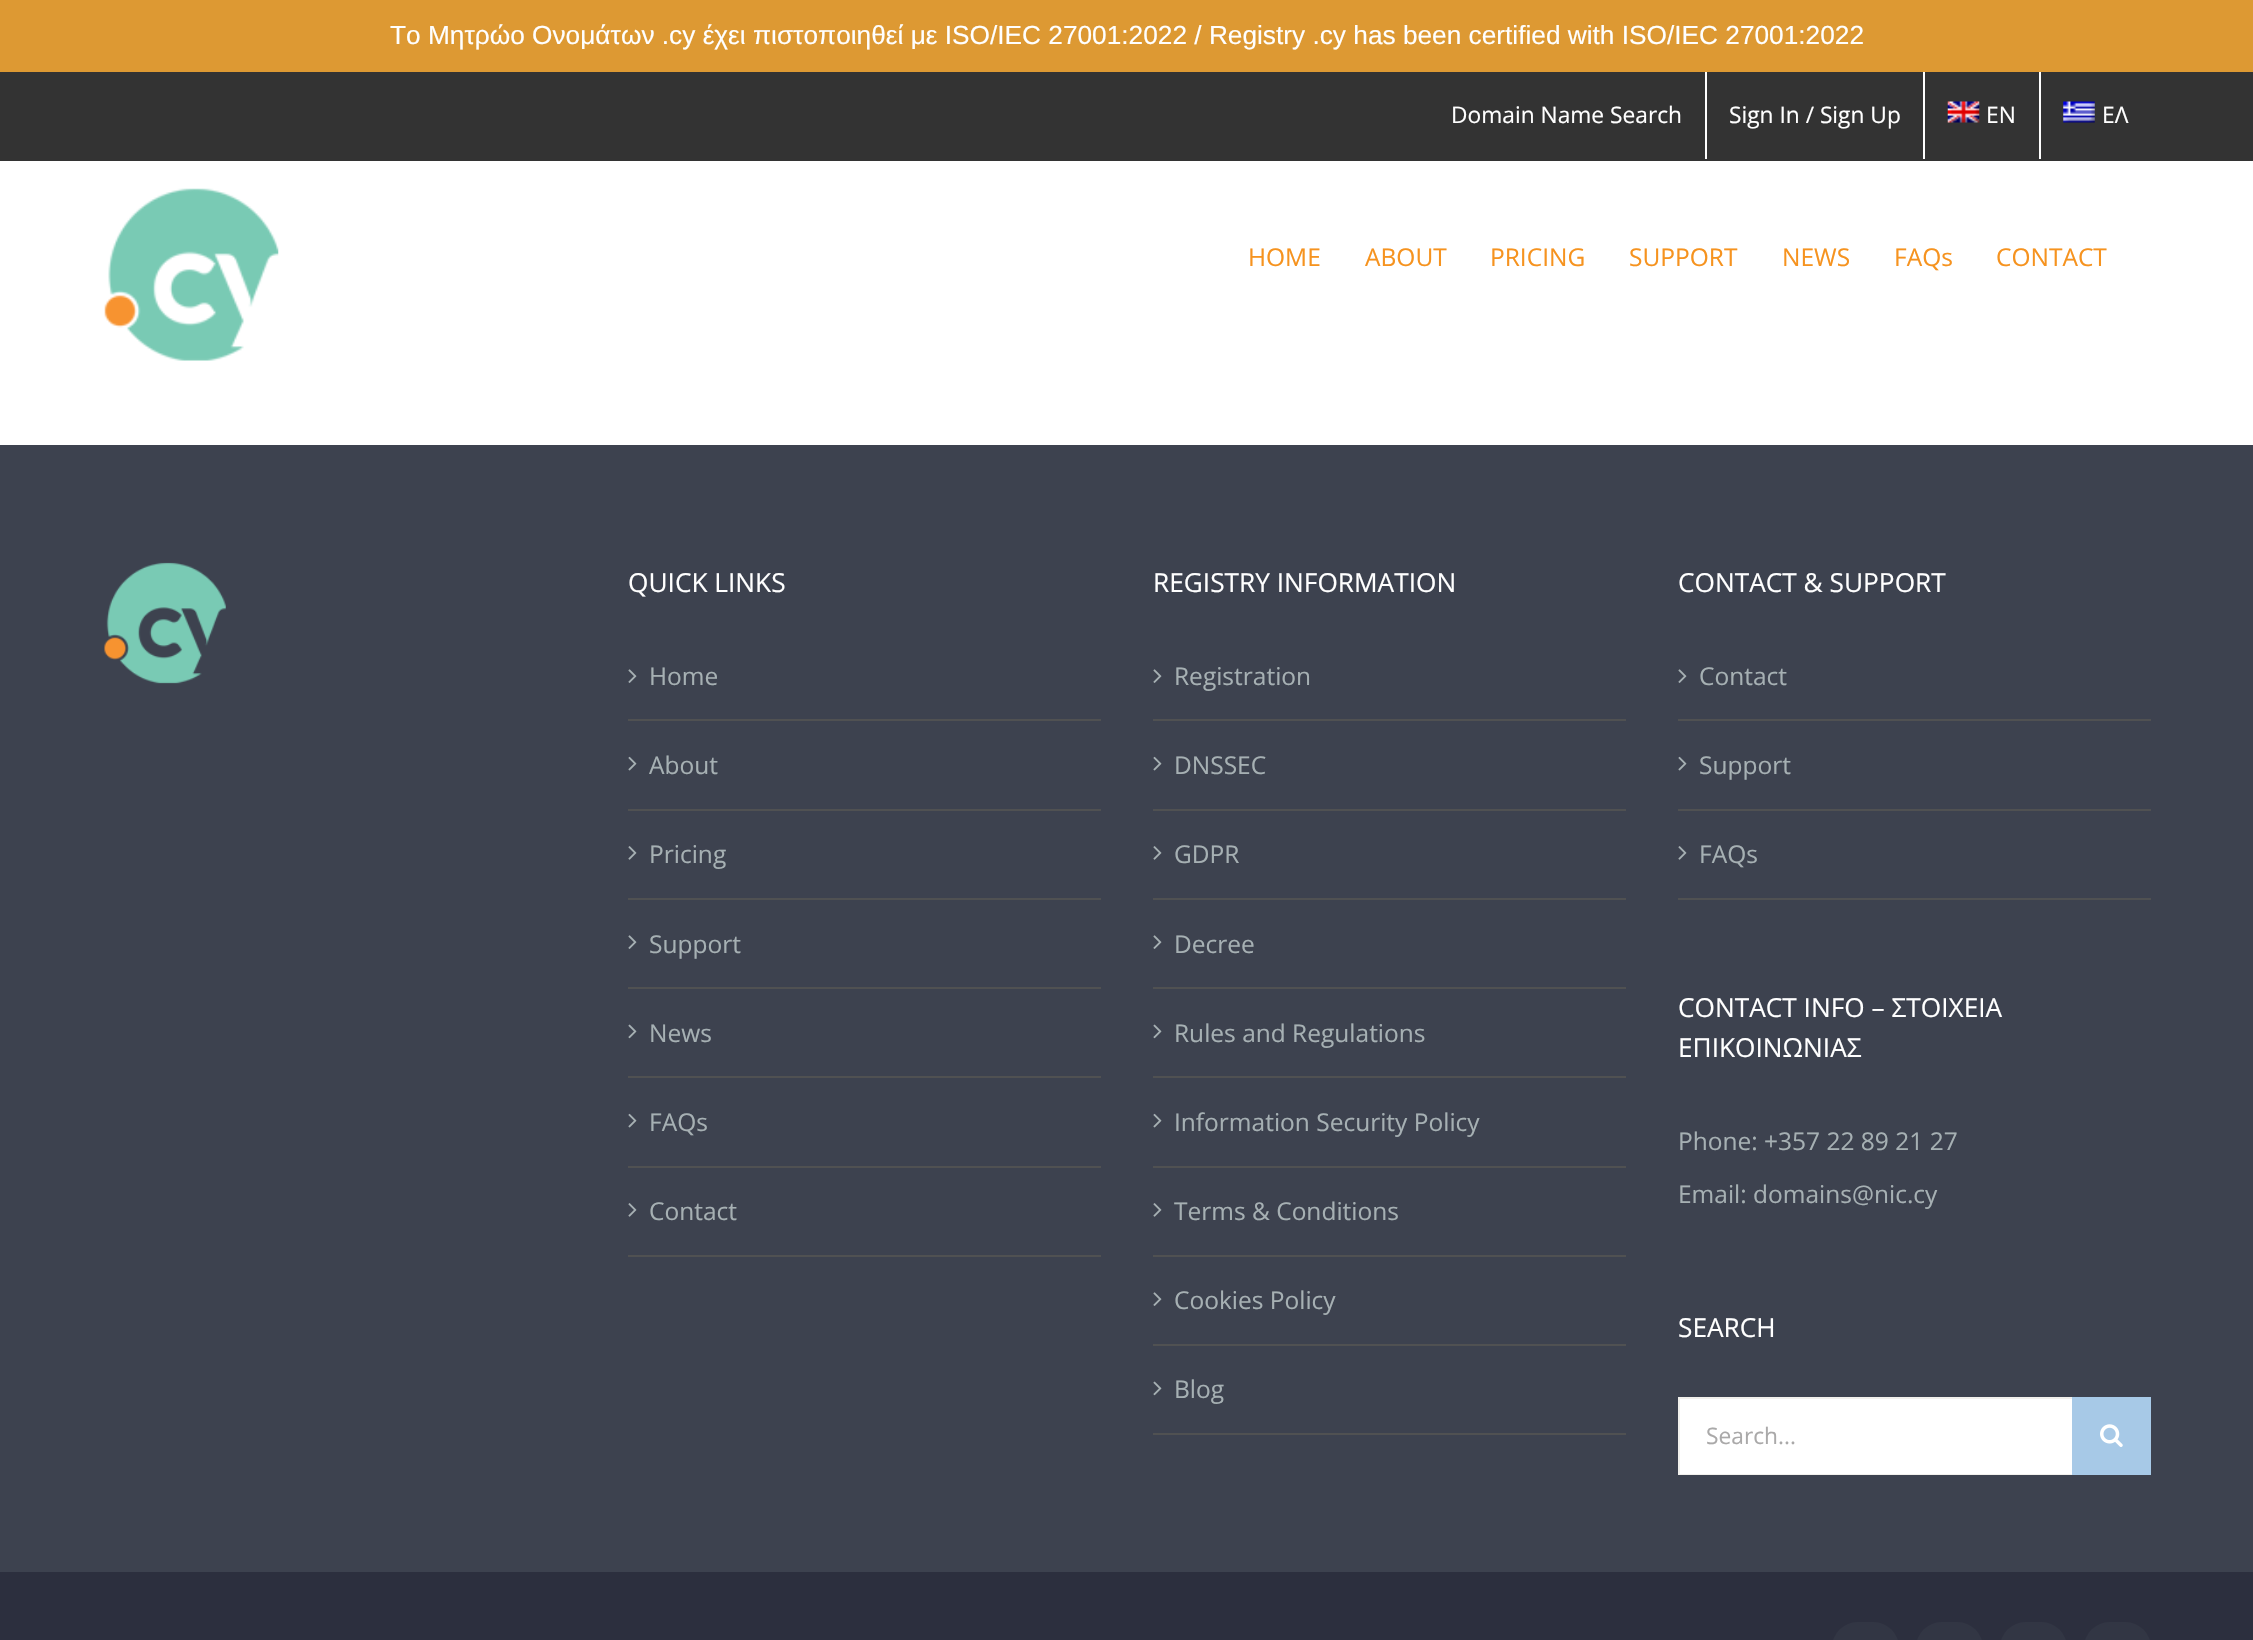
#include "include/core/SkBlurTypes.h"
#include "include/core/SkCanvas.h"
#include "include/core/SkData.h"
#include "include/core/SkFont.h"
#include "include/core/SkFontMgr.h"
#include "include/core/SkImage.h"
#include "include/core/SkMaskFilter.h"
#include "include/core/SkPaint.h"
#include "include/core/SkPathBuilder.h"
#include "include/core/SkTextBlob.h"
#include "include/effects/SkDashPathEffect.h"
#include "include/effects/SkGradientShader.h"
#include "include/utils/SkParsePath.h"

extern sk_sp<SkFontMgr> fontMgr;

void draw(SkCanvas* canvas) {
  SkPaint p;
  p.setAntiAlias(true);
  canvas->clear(SK_ColorWHITE);
  p.setColor(SkColorSetRGB(221, 153, 51));
  canvas->drawRect(SkRect::MakeLTRB(0, 0, 2253, 72), p);
  p.setColor(SkColorSetRGB(51, 51, 51));
  canvas->drawRect(SkRect::MakeLTRB(0, 72, 2253, 161), p);
  p.setColor(SK_ColorWHITE);
  canvas->drawRect(SkRect::MakeLTRB(1705, 72, 1707, 159), p);
  canvas->drawRect(SkRect::MakeLTRB(1923, 72, 1925, 159), p);
  canvas->drawImageRect(SkImages::DeferredFromEncodedData(SkData::MakeFromFileName("images/1.png")), SkRect::MakeLTRB(1947, 101, 1980, 123), SkSamplingOptions());
  canvas->drawRect(SkRect::MakeLTRB(2039, 72, 2041, 159), p);
  canvas->drawImageRect(SkImages::DeferredFromEncodedData(SkData::MakeFromFileName("images/2.png")), SkRect::MakeLTRB(2063, 101, 2095, 123), SkSamplingOptions());
  canvas->drawImageRect(SkImages::DeferredFromEncodedData(SkData::MakeFromFileName("images/3.png")), SkRect::MakeLTRB(104, 188, 279, 361), SkSamplingOptions());
  p.setColor(SkColorSetRGB(61, 66, 79));
  canvas->drawRect(SkRect::MakeLTRB(0, 445, 2253, 1572), p);
  canvas->drawImageRect(SkImages::DeferredFromEncodedData(SkData::MakeFromFileName("images/4.png")), SkRect::MakeLTRB(104, 562, 226, 684), SkSamplingOptions());
  p.setColor(SkColorSetRGB(80, 81, 82));
  canvas->drawRect(SkRect::MakeLTRB(628, 719, 1101, 721), p);
  canvas->drawImageRect(SkImages::DeferredFromEncodedData(SkData::MakeFromFileName("images/5.png")), SkRect::MakeLTRB(628, 669, 637, 683), SkSamplingOptions());
  canvas->drawRect(SkRect::MakeLTRB(628, 809, 1101, 811), p);
  canvas->drawImageRect(SkImages::DeferredFromEncodedData(SkData::MakeFromFileName("images/6.png")), SkRect::MakeLTRB(628, 756, 637, 771), SkSamplingOptions());
  canvas->drawRect(SkRect::MakeLTRB(628, 898, 1101, 900), p);
  canvas->drawImageRect(SkImages::DeferredFromEncodedData(SkData::MakeFromFileName("images/7.png")), SkRect::MakeLTRB(628, 846, 637, 860), SkSamplingOptions());
  canvas->drawRect(SkRect::MakeLTRB(628, 987, 1101, 989), p);
  canvas->drawImageRect(SkImages::DeferredFromEncodedData(SkData::MakeFromFileName("images/5.png")), SkRect::MakeLTRB(628, 935, 637, 949), SkSamplingOptions());
  canvas->drawRect(SkRect::MakeLTRB(628, 1076, 1101, 1078), p);
  canvas->drawImageRect(SkImages::DeferredFromEncodedData(SkData::MakeFromFileName("images/8.png")), SkRect::MakeLTRB(628, 1024, 637, 1039), SkSamplingOptions());
  canvas->drawRect(SkRect::MakeLTRB(628, 1166, 1101, 1168), p);
  canvas->drawImageRect(SkImages::DeferredFromEncodedData(SkData::MakeFromFileName("images/6.png")), SkRect::MakeLTRB(628, 1113, 637, 1128), SkSamplingOptions());
  canvas->drawRect(SkRect::MakeLTRB(628, 1255, 1101, 1257), p);
  canvas->drawImageRect(SkImages::DeferredFromEncodedData(SkData::MakeFromFileName("images/7.png")), SkRect::MakeLTRB(628, 1203, 637, 1217), SkSamplingOptions());
  canvas->drawRect(SkRect::MakeLTRB(1153, 719, 1626, 721), p);
  canvas->drawImageRect(SkImages::DeferredFromEncodedData(SkData::MakeFromFileName("images/5.png")), SkRect::MakeLTRB(1153, 669, 1162, 683), SkSamplingOptions());
  canvas->drawRect(SkRect::MakeLTRB(1153, 809, 1626, 811), p);
  canvas->drawImageRect(SkImages::DeferredFromEncodedData(SkData::MakeFromFileName("images/6.png")), SkRect::MakeLTRB(1153, 756, 1162, 771), SkSamplingOptions());
  canvas->drawRect(SkRect::MakeLTRB(1153, 898, 1626, 900), p);
  canvas->drawImageRect(SkImages::DeferredFromEncodedData(SkData::MakeFromFileName("images/7.png")), SkRect::MakeLTRB(1153, 846, 1162, 860), SkSamplingOptions());
  canvas->drawRect(SkRect::MakeLTRB(1153, 987, 1626, 989), p);
  canvas->drawImageRect(SkImages::DeferredFromEncodedData(SkData::MakeFromFileName("images/5.png")), SkRect::MakeLTRB(1153, 935, 1162, 949), SkSamplingOptions());
  canvas->drawRect(SkRect::MakeLTRB(1153, 1076, 1626, 1078), p);
  canvas->drawImageRect(SkImages::DeferredFromEncodedData(SkData::MakeFromFileName("images/8.png")), SkRect::MakeLTRB(1153, 1024, 1162, 1039), SkSamplingOptions());
  canvas->drawRect(SkRect::MakeLTRB(1153, 1166, 1626, 1168), p);
  canvas->drawImageRect(SkImages::DeferredFromEncodedData(SkData::MakeFromFileName("images/6.png")), SkRect::MakeLTRB(1153, 1113, 1162, 1128), SkSamplingOptions());
  canvas->drawRect(SkRect::MakeLTRB(1153, 1255, 1626, 1257), p);
  canvas->drawImageRect(SkImages::DeferredFromEncodedData(SkData::MakeFromFileName("images/7.png")), SkRect::MakeLTRB(1153, 1203, 1162, 1217), SkSamplingOptions());
  canvas->drawRect(SkRect::MakeLTRB(1153, 1344, 1626, 1346), p);
  canvas->drawImageRect(SkImages::DeferredFromEncodedData(SkData::MakeFromFileName("images/5.png")), SkRect::MakeLTRB(1153, 1292, 1162, 1306), SkSamplingOptions());
  canvas->drawRect(SkRect::MakeLTRB(1153, 1433, 1626, 1435), p);
  canvas->drawImageRect(SkImages::DeferredFromEncodedData(SkData::MakeFromFileName("images/8.png")), SkRect::MakeLTRB(1153, 1381, 1162, 1396), SkSamplingOptions());
  canvas->drawRect(SkRect::MakeLTRB(1678, 719, 2151, 721), p);
  canvas->drawImageRect(SkImages::DeferredFromEncodedData(SkData::MakeFromFileName("images/5.png")), SkRect::MakeLTRB(1678, 669, 1687, 683), SkSamplingOptions());
  canvas->drawRect(SkRect::MakeLTRB(1678, 809, 2151, 811), p);
  canvas->drawImageRect(SkImages::DeferredFromEncodedData(SkData::MakeFromFileName("images/6.png")), SkRect::MakeLTRB(1678, 756, 1687, 771), SkSamplingOptions());
  canvas->drawRect(SkRect::MakeLTRB(1678, 898, 2151, 900), p);
  canvas->drawImageRect(SkImages::DeferredFromEncodedData(SkData::MakeFromFileName("images/7.png")), SkRect::MakeLTRB(1678, 846, 1687, 860), SkSamplingOptions());
  p.setColor(SK_ColorWHITE);
  canvas->drawRect(SkRect::MakeLTRB(1680, 1399, 2072, 1474), p);
  p.setColor(SkColorSetRGB(241, 240, 236));
  canvas->drawRect(SkRect::MakeLTRB(1678, 1397, 2072, 1399), p);
  canvas->drawRect(SkRect::MakeLTRB(1678, 1474, 2072, 1475), p);
  canvas->drawRect(SkRect::MakeLTRB(1678, 1397, 1680, 1475), p);
  p.setColor(SkColorSetRGB(167, 201, 231));
  canvas->drawRect(SkRect::MakeLTRB(2072, 1397, 2151, 1475), p);
  canvas->drawImageRect(SkImages::DeferredFromEncodedData(SkData::MakeFromFileName("images/9.png")), SkRect::MakeLTRB(2100, 1424, 2123, 1447), SkSamplingOptions());
  p.setColor(SkColorSetRGB(44, 47, 62));
  canvas->drawRect(SkRect::MakeLTRB(0, 1572, 2253, 1640), p);
  p.setColor(SkColorSetRGB(50, 54, 68));
  canvas->drawRoundRect(SkRect::MakeLTRB(1832, 1622, 1899, 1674), 33.5f, 33.5f, p);
  canvas->drawRoundRect(SkRect::MakeLTRB(1916, 1622, 1983, 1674), 33.5f, 33.5f, p);
  canvas->drawRoundRect(SkRect::MakeLTRB(2000, 1622, 2067, 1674), 33.5f, 33.5f, p);
  canvas->drawRoundRect(SkRect::MakeLTRB(2084, 1622, 2151, 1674), 33.5f, 33.5f, p);
  SkFont font1(fontMgr->matchFamilyStyle("Liberation Sans", SkFontStyle::Normal()), 26.25f);
  font1.setSubpixel(true);
  p.setColor(SK_ColorWHITE);
  canvas->drawString("Το Μητρώο Ονομάτων .cy έχει πιστοποιηθεί με ISO/IEC 27001:2022 / Registry .cy has been certified with ISO/IEC 27001:2022", 390, 44, font1, p);
  SkFont font2(fontMgr->matchFamilyStyle("Open Sans", SkFontStyle::Normal()), 22.75f);
  font2.setSubpixel(true);
  canvas->drawString("Domain Name Search", 1451, 123, font2, p);
  canvas->drawString("Sign In / Sign Up", 1729, 123, font2, p);
  canvas->drawString("EN", 1986, 123, font2, p);
  canvas->drawString("ΕΛ", 2102, 123, font2, p);
  SkFont font3(fontMgr->matchFamilyStyle("Open Sans", SkFontStyle::Normal()), 24.5f);
  font3.setSubpixel(true);
  p.setColor(SkColorSetRGB(246, 147, 31));
  canvas->drawString("HOME", 1248, 266, font3, p);
  canvas->drawString("ABOUT", 1365, 266, font3, p);
  canvas->drawString("PRICING", 1490, 266, font3, p);
  canvas->drawString("SUPPORT", 1629, 266, font3, p);
  canvas->drawString("NEWS", 1782, 266, font3, p);
  canvas->drawString("FAQs", 1894, 266, font3, p);
  canvas->drawString("CONTACT", 1996, 266, font3, p);
  SkFont font4(fontMgr->matchFamilyStyle("Open Sans", SkFontStyle::Normal()), 26.25f);
  font4.setSubpixel(true);
  p.setColor(SK_ColorWHITE);
  canvas->drawString("QUICK LINKS", 628, 592, font4, p);
  p.setColor(SkColorSetRGB(166, 176, 179));
  canvas->drawString("Home", 649, 685, font3, p);
  canvas->drawString("About", 649, 774, font3, p);
  canvas->drawString("Pricing", 649, 863, font3, p);
  canvas->drawString("Support", 649, 953, font3, p);
  canvas->drawString("News", 649, 1042, font3, p);
  canvas->drawString("FAQs", 649, 1131, font3, p);
  canvas->drawString("Contact", 649, 1220, font3, p);
  p.setColor(SK_ColorWHITE);
  canvas->drawString("REGISTRY INFORMATION", 1153, 592, font4, p);
  p.setColor(SkColorSetRGB(166, 176, 179));
  canvas->drawString("Registration", 1174, 685, font3, p);
  canvas->drawString("DNSSEC", 1174, 774, font3, p);
  canvas->drawString("GDPR", 1174, 863, font3, p);
  canvas->drawString("Decree", 1174, 953, font3, p);
  canvas->drawString("Rules and Regulations", 1174, 1042, font3, p);
  canvas->drawString("Information Security Policy", 1174, 1131, font3, p);
  canvas->drawString("Terms & Conditions", 1174, 1220, font3, p);
  canvas->drawString("Cookies Policy", 1174, 1309, font3, p);
  canvas->drawString("Blog", 1174, 1398, font3, p);
  p.setColor(SK_ColorWHITE);
  canvas->drawString("CONTACT & SUPPORT", 1678, 592, font4, p);
  p.setColor(SkColorSetRGB(166, 176, 179));
  canvas->drawString("Contact", 1699, 685, font3, p);
  canvas->drawString("Support", 1699, 774, font3, p);
  canvas->drawString("FAQs", 1699, 863, font3, p);
  p.setColor(SK_ColorWHITE);
  canvas->drawString("CONTACT INFO – ΣΤΟΙΧΕΙΑ", 1678, 1017, font4, p);
  canvas->drawString("ΕΠΙΚΟΙΝΩΝΙΑΣ", 1678, 1057, font4, p);
  p.setColor(SkColorSetRGB(166, 176, 179));
  canvas->drawString("Phone: +357 22 89 21 27", 1678, 1150, font3, p);
  canvas->drawString("Email: domains@nic.cy", 1678, 1203, font3, p);
  p.setColor(SK_ColorWHITE);
  canvas->drawString("SEARCH", 1678, 1337, font4, p);
  p.setColor(SkColorSetRGB(170, 169, 169));
  canvas->drawString("Search...", 1706, 1444, font2, p);
}
